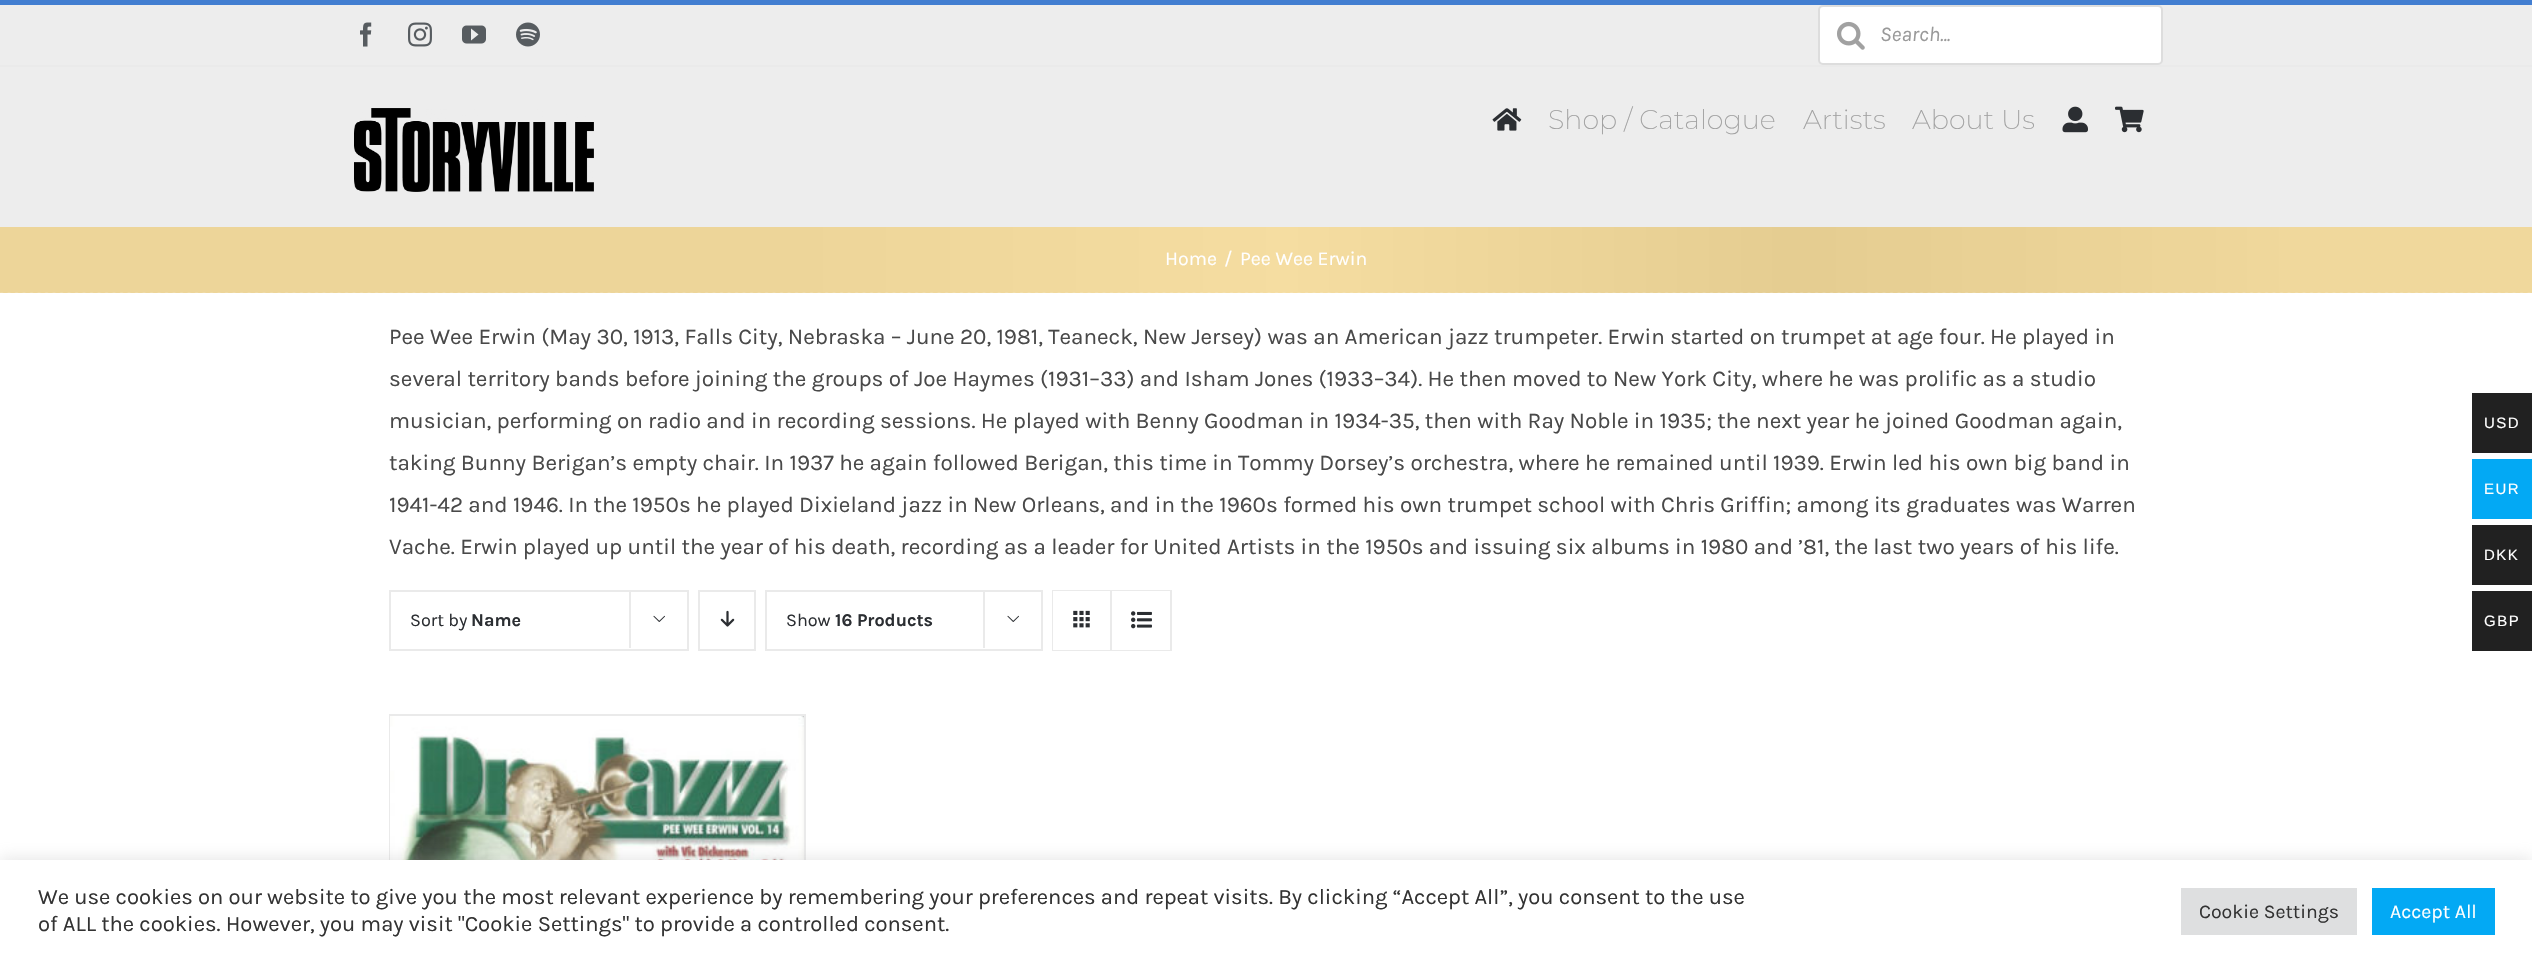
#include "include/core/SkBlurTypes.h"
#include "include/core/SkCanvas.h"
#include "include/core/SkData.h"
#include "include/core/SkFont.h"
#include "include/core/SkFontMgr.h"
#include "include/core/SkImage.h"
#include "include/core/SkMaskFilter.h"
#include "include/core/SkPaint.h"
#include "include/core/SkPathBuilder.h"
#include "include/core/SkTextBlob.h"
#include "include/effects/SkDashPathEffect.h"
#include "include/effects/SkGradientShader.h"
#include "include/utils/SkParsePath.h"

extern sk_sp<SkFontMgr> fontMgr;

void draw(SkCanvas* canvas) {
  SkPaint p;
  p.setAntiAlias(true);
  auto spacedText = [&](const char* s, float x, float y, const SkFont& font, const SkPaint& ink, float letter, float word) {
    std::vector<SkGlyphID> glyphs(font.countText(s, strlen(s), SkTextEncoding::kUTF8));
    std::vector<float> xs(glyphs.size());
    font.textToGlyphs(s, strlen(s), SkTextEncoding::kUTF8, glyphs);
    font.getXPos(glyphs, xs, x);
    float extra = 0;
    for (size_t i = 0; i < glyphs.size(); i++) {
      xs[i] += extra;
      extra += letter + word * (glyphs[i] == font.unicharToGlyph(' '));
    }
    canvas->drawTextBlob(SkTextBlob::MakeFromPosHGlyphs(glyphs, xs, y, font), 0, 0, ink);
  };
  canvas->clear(SK_ColorWHITE);
  p.setColor(SkColorSetRGB(237, 237, 237));
  canvas->drawRect(SkRect::MakeLTRB(0, 5, 2532, 65), p);
  p.setColor(SkColorSetRGB(66, 126, 209));
  canvas->drawRect(SkRect::MakeLTRB(0, 0, 2532, 5), p);
  canvas->drawImageRect(SkImages::DeferredFromEncodedData(SkData::MakeFromFileName("images/1.png")), SkRect::MakeLTRB(360, 22, 372, 47), SkSamplingOptions());
  canvas->drawImageRect(SkImages::DeferredFromEncodedData(SkData::MakeFromFileName("images/2.png")), SkRect::MakeLTRB(408, 22, 432, 47), SkSamplingOptions());
  canvas->drawImageRect(SkImages::DeferredFromEncodedData(SkData::MakeFromFileName("images/3.png")), SkRect::MakeLTRB(462, 25, 486, 44), SkSamplingOptions());
  canvas->drawImageRect(SkImages::DeferredFromEncodedData(SkData::MakeFromFileName("images/4.png")), SkRect::MakeLTRB(516, 22, 540, 47), SkSamplingOptions());
  p.setColor(SK_ColorWHITE);
  canvas->drawRoundRect(SkRect::MakeLTRB(1819, 6, 2162, 64), 4, 4, p);
  p.setStyle(SkPaint::kStroke_Style);
  p.setStrokeWidth(2);
  p.setColor(SkColorSetRGB(221, 221, 221));
  canvas->drawRoundRect(SkRect::MakeLTRB(1819, 6, 2162, 64), 4, 4, p);
  canvas->drawImageRect(SkImages::DeferredFromEncodedData(SkData::MakeFromFileName("images/5.png")), SkRect::MakeLTRB(1837, 21, 1865, 50), SkSamplingOptions());
  p.setStyle(SkPaint::kFill_Style);
  p.setColor(SkColorSetRGB(237, 237, 237));
  canvas->drawRect(SkRect::MakeLTRB(0, 67, 2532, 227), p);
  p.setColor(SkColorSetRGB(234, 234, 234));
  canvas->drawRect(SkRect::MakeLTRB(0, 65, 2532, 67), p);
  canvas->drawImageRect(SkImages::DeferredFromEncodedData(SkData::MakeFromFileName("images/6.png")), SkRect::MakeLTRB(354, 108, 594, 192), SkSamplingOptions());
  canvas->drawImageRect(SkImages::DeferredFromEncodedData(SkData::MakeFromFileName("images/7.png")), SkRect::MakeLTRB(1492, 108, 1522, 131), SkSamplingOptions());
  canvas->drawImageRect(SkImages::DeferredFromEncodedData(SkData::MakeFromFileName("images/8.png")), SkRect::MakeLTRB(2062, 106, 2088, 133), SkSamplingOptions());
  canvas->drawImageRect(SkImages::DeferredFromEncodedData(SkData::MakeFromFileName("images/9.png")), SkRect::MakeLTRB(2115, 106, 2144, 133), SkSamplingOptions());
  canvas->drawImageRect(SkImages::DeferredFromEncodedData(SkData::MakeFromFileName("images/10.png")), SkRect::MakeLTRB(0, 227, 2532, 293), SkSamplingOptions());
  canvas->drawImageRect(SkImages::DeferredFromEncodedData(SkData::MakeFromFileName("images/11.png")), SkRect::MakeLTRB(0, 292, 2531, 293), SkSamplingOptions());
  p.setStyle(SkPaint::kStroke_Style);
  canvas->drawRect(SkRect::MakeLTRB(390, 591, 688, 650), p);
  p.setStyle(SkPaint::kFill_Style);
  canvas->drawRect(SkRect::MakeLTRB(629, 590, 631, 648), p);
  canvas->drawImageRect(SkImages::DeferredFromEncodedData(SkData::MakeFromFileName("images/12.png")), SkRect::MakeLTRB(653, 615, 665, 622), SkSamplingOptions());
  p.setStyle(SkPaint::kStroke_Style);
  canvas->drawRect(SkRect::MakeLTRB(699, 591, 755, 650), p);
  canvas->drawImageRect(SkImages::DeferredFromEncodedData(SkData::MakeFromFileName("images/13.png")), SkRect::MakeLTRB(720, 610, 735, 627), SkSamplingOptions());
  canvas->drawRect(SkRect::MakeLTRB(766, 591, 1042, 650), p);
  p.setStyle(SkPaint::kFill_Style);
  canvas->drawRect(SkRect::MakeLTRB(983, 590, 985, 648), p);
  canvas->drawImageRect(SkImages::DeferredFromEncodedData(SkData::MakeFromFileName("images/12.png")), SkRect::MakeLTRB(1007, 615, 1019, 622), SkSamplingOptions());
  p.setStyle(SkPaint::kStroke_Style);
  canvas->drawRect(SkRect::MakeLTRB(1053, 591, 1171, 650), p);
  p.setStyle(SkPaint::kFill_Style);
  p.setColor(SK_ColorWHITE);
  canvas->drawRect(SkRect::MakeLTRB(1053, 591, 1110, 650), p);
  p.setColor(SkColorSetRGB(234, 234, 234));
  canvas->drawRect(SkRect::MakeLTRB(1110, 591, 1112, 650), p);
  canvas->drawImageRect(SkImages::DeferredFromEncodedData(SkData::MakeFromFileName("images/14.png")), SkRect::MakeLTRB(1073, 610, 1090, 628), SkSamplingOptions());
  p.setColor(SK_ColorWHITE);
  canvas->drawRect(SkRect::MakeLTRB(1112, 591, 1170, 650), p);
  canvas->drawImageRect(SkImages::DeferredFromEncodedData(SkData::MakeFromFileName("images/15.png")), SkRect::MakeLTRB(1131, 611, 1152, 629), SkSamplingOptions());
  p.setColor(SkColorSetRGB(234, 234, 234));
  canvas->drawRect(SkRect::MakeLTRB(389, 714, 806, 716), p);
  canvas->drawRect(SkRect::MakeLTRB(804, 714, 806, 860), p);
  canvas->drawRect(SkRect::MakeLTRB(389, 714, 391, 860), p);
  canvas->drawImageRect(SkImages::DeferredFromEncodedData(SkData::MakeFromFileName("images/16.png")), SkRect::MakeLTRB(390, 716, 804, 860), SkSamplingOptions());
  p.setColor(SkColorSetRGB(33, 33, 33));
  canvas->drawRect(SkRect::MakeLTRB(2472, 393, 2532, 453), p);
  p.setColor(SkColorSetRGB(3, 169, 244));
  canvas->drawRect(SkRect::MakeLTRB(2472, 459, 2532, 519), p);
  p.setColor(SkColorSetRGB(33, 33, 33));
  canvas->drawRect(SkRect::MakeLTRB(2472, 525, 2532, 585), p);
  canvas->drawRect(SkRect::MakeLTRB(2472, 591, 2532, 651), p);
  p.setColor(SkColorSetARGB(77, 172, 171, 171));
  p.setMaskFilter(SkMaskFilter::MakeBlur(kNormal_SkBlurStyle, 7.5f));
  canvas->drawRect(SkRect::MakeLTRB(0, 858, 2532, 962), p);
  p.setMaskFilter(nullptr);
  p.setColor(SK_ColorWHITE);
  canvas->drawRect(SkRect::MakeLTRB(0, 860, 2532, 962), p);
  p.setColor(SkColorSetRGB(222, 223, 224));
  canvas->drawRect(SkRect::MakeLTRB(2181, 888, 2357, 935), p);
  p.setColor(SkColorSetRGB(3, 169, 244));
  canvas->drawRect(SkRect::MakeLTRB(2372, 888, 2495, 935), p);
  SkFont font1(fontMgr->matchFamilyStyle("Karla", SkFontStyle::Italic()), 21);
  font1.setSubpixel(true);
  p.setColor(SkColorSetRGB(153, 153, 153));
  canvas->drawString("Search...", 1880, 41, font1, p);
  SkFont font2(fontMgr->matchFamilyStyle("Montserrat", SkFontStyle(200, SkFontStyle::kNormal_Width, SkFontStyle::kUpright_Slant)), 27);
  font2.setSubpixel(true);
  p.setColor(SkColorSetRGB(160, 160, 160));
  canvas->drawString("Shop / Catalogue", 1548, 129, font2, p);
  canvas->drawString("Artists", 1803, 129, font2, p);
  canvas->drawString("About Us", 1912, 129, font2, p);
  SkFont font3(fontMgr->matchFamilyStyle("Karla", SkFontStyle::Normal()), 19.5f);
  font3.setSubpixel(true);
  p.setColor(SK_ColorWHITE);
  canvas->drawString("Home", 1165, 265, font3, p);
  canvas->drawString("/", 1224, 265, font3, p);
  canvas->drawString("Pee Wee Erwin", 1240, 265, font3, p);
  SkFont font4(fontMgr->matchFamilyStyle("Karla", SkFontStyle::Normal()), 22.5f);
  font4.setSubpixel(true);
  p.setColor(SkColorSetRGB(73, 73, 73));
  canvas->drawString("Pee Wee Erwin (May 30, 1913, Falls City, Nebraska – June 20, 1981, Teaneck, New Jersey) was an American jazz trumpeter. Erwin started on trumpet at age four. He played in", 389, 344, font4, p);
  canvas->drawString("several territory bands before joining the groups of Joe Haymes (1931–33) and Isham Jones (1933–34). He then moved to New York City, where he was prolific as a studio", 389, 386, font4, p);
  canvas->drawString("musician, performing on radio and in recording sessions. He played with Benny Goodman in 1934-35, then with Ray Noble in 1935; the next year he joined Goodman again,", 389, 428, font4, p);
  canvas->drawString("taking Bunny Berigan’s empty chair. In 1937 he again followed Berigan, this time in Tommy Dorsey’s orchestra, where he remained until 1939. Erwin led his own big band in", 389, 470, font4, p);
  canvas->drawString("1941-42 and 1946. In the 1950s he played Dixieland jazz in New Orleans, and in the 1960s formed his own trumpet school with Chris Griffin; among its graduates was Warren", 389, 512, font4, p);
  canvas->drawString("Vache. Erwin played up until the year of his death, recording as a leader for United Artists in the 1950s and issuing six albums in 1980 and ’81, the last two years of his life.", 389, 554, font4, p);
  SkFont font5(fontMgr->matchFamilyStyle("Karla", SkFontStyle::Normal()), 18);
  font5.setSubpixel(true);
  p.setColor(SkColorSetRGB(43, 46, 50));
  canvas->drawString("Sort by", 410, 626, font5, p);
  SkFont font6(fontMgr->matchFamilyStyle("Karla", SkFontStyle::Bold()), 18);
  font6.setSubpixel(true);
  canvas->drawString("Name", 471, 626, font6, p);
  canvas->drawString("Show", 786, 626, font5, p);
  canvas->drawString("16 Products", 835, 626, font6, p);
  SkFont font7(fontMgr->matchFamilyStyle("Liberation Sans", SkFontStyle::Normal()), 15);
  font7.setSubpixel(true);
  p.setColor(SK_ColorWHITE);
  spacedText("USD", 2484, 428, font7, p, 1.5f, 0);
  spacedText("EUR", 2484, 494, font7, p, 1.5f, 0);
  spacedText("DKK", 2484, 560, font7, p, 1.5f, 0);
  spacedText("GBP", 2484, 626, font7, p, 1.5f, 0);
  SkFont font8(fontMgr->matchFamilyStyle("Karla", SkFontStyle::Normal()), 22);
  font8.setSubpixel(true);
  p.setColor(SkColorSetRGB(51, 51, 51));
  canvas->drawString("We use cookies on our website to give you the most relevant experience by remembering your preferences and repeat visits. By clicking “Accept All”, you consent to the use", 38, 904, font8, p);
  canvas->drawString("of ALL the cookies. However, you may visit \"Cookie Settings\" to provide a controlled consent.", 38, 931, font8, p);
  canvas->drawString("Cookie Settings", 2199, 918, font3, p);
  p.setColor(SK_ColorWHITE);
  canvas->drawString("Accept All", 2390, 918, font3, p);
}
